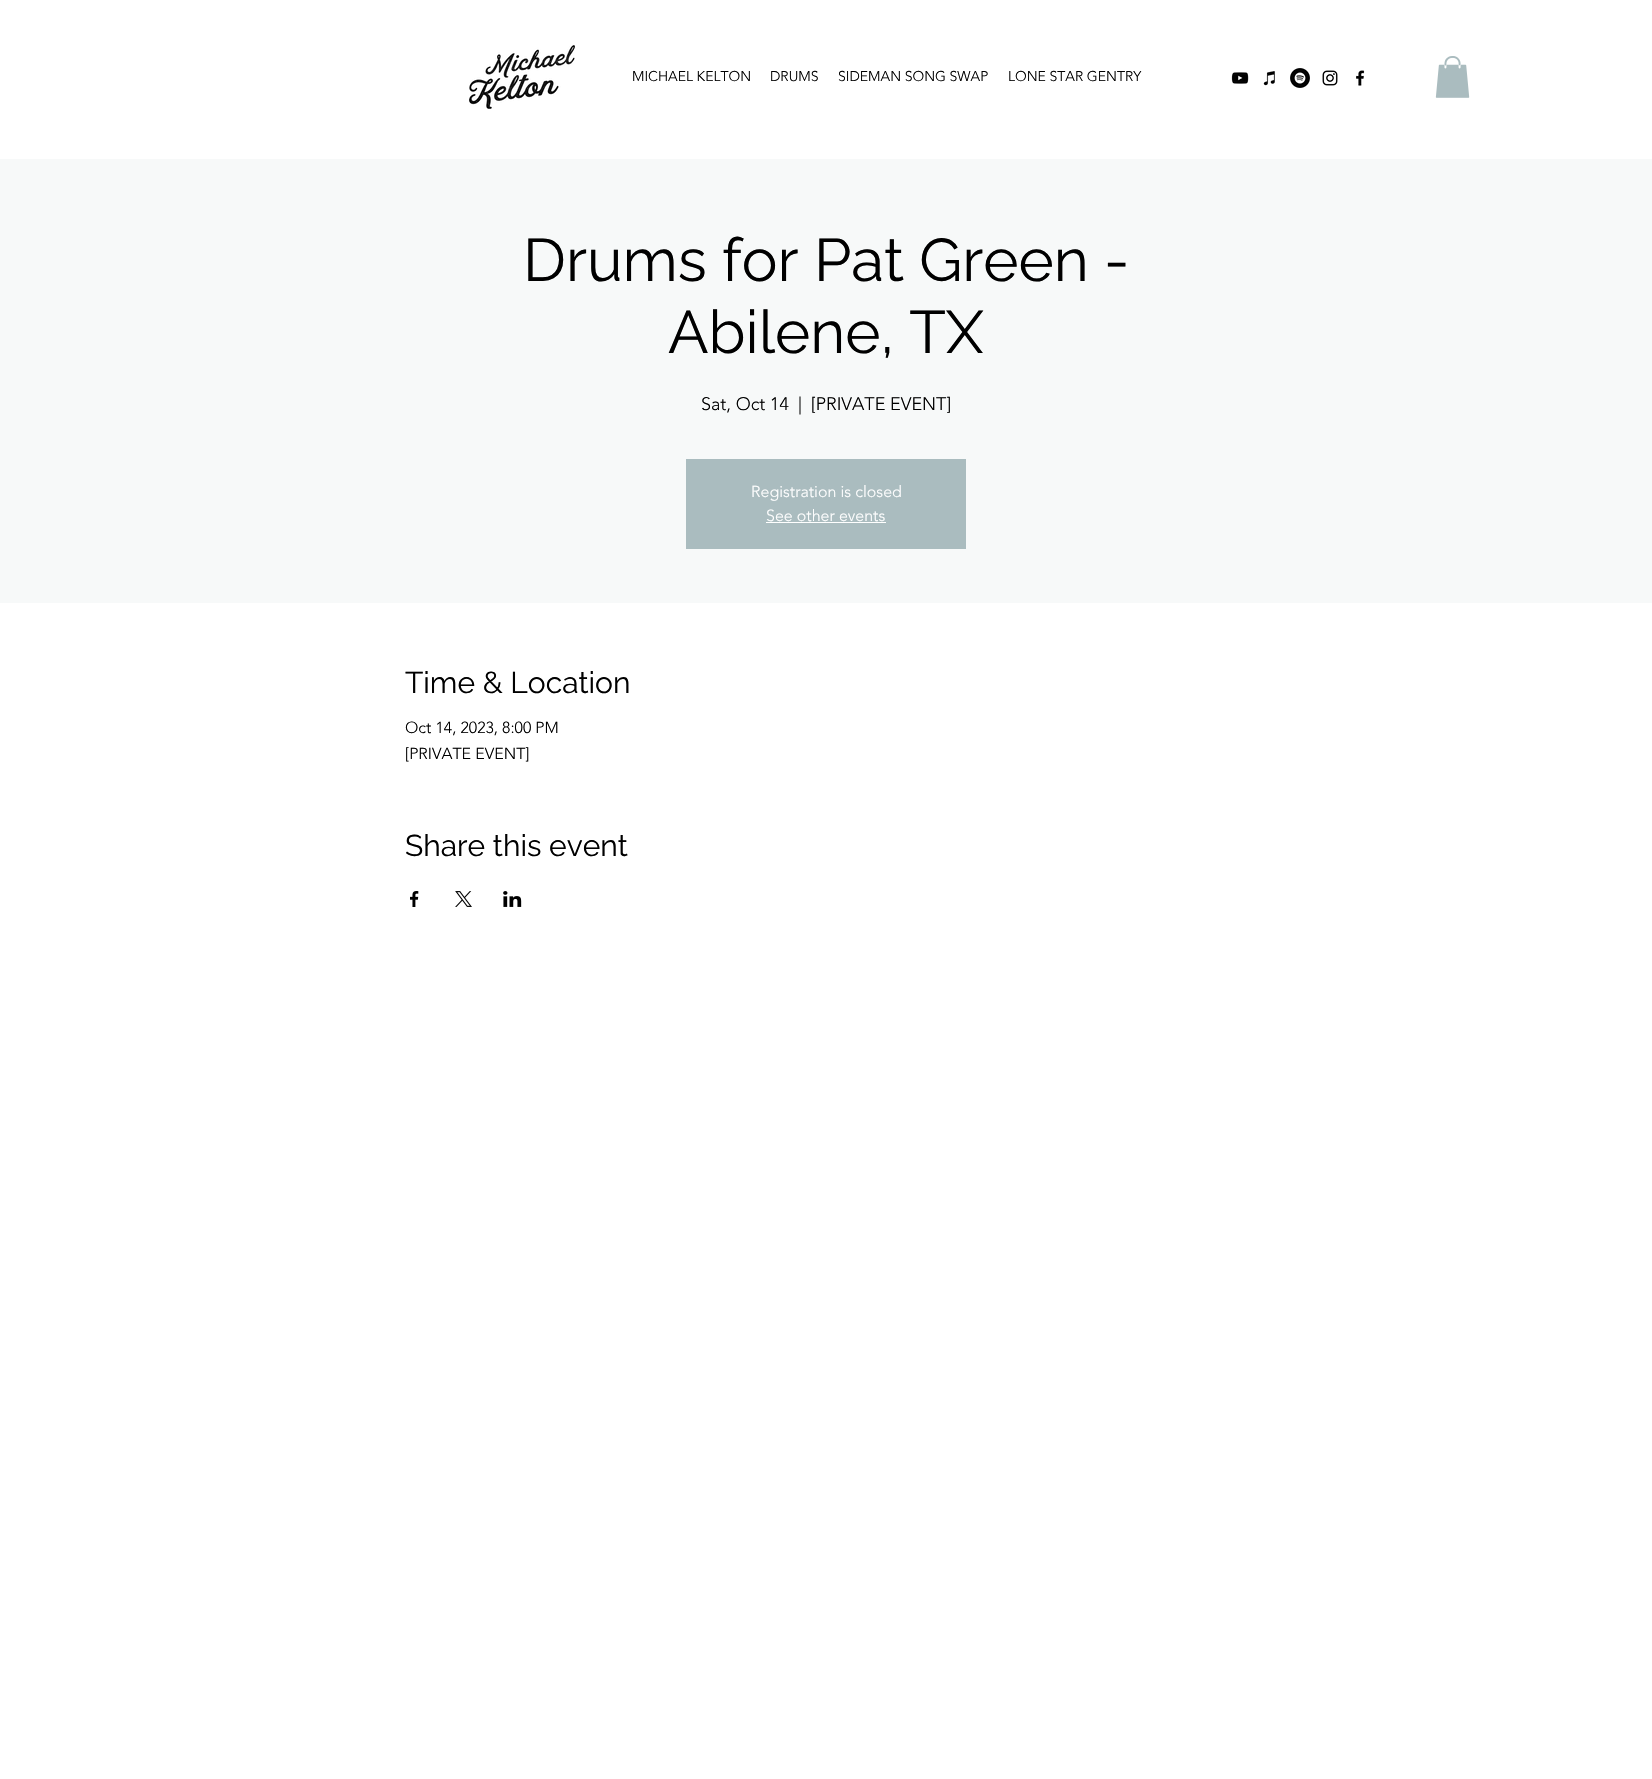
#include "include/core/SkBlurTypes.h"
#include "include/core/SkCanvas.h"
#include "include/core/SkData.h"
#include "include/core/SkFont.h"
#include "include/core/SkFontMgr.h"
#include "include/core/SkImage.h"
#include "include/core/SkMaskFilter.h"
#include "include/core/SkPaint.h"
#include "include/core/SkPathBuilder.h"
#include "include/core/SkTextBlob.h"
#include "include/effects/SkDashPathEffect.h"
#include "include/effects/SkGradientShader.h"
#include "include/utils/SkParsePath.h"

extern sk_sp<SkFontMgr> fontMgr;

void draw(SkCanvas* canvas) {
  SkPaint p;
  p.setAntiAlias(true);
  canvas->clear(SK_ColorWHITE);
  canvas->drawImageRect(SkImages::DeferredFromEncodedData(SkData::MakeFromFileName("images/1.png")), SkRect::MakeLTRB(469, 45, 575, 109), SkSamplingOptions());
  canvas->drawImageRect(SkImages::DeferredFromEncodedData(SkData::MakeFromFileName("images/2.png")), SkRect::MakeLTRB(1231, 72, 1249, 84), SkSamplingOptions());
  canvas->drawImageRect(SkImages::DeferredFromEncodedData(SkData::MakeFromFileName("images/3.png")), SkRect::MakeLTRB(1263, 71, 1275, 86), SkSamplingOptions());
  canvas->drawImageRect(SkImages::DeferredFromEncodedData(SkData::MakeFromFileName("images/4.png")), SkRect::MakeLTRB(1290, 68, 1310, 88), SkSamplingOptions());
  canvas->drawImageRect(SkImages::DeferredFromEncodedData(SkData::MakeFromFileName("images/5.png")), SkRect::MakeLTRB(1322, 70, 1338, 86), SkSamplingOptions());
  canvas->drawImageRect(SkImages::DeferredFromEncodedData(SkData::MakeFromFileName("images/6.png")), SkRect::MakeLTRB(1356, 70, 1365, 86), SkSamplingOptions());
  canvas->drawImageRect(SkImages::DeferredFromEncodedData(SkData::MakeFromFileName("images/7.png")), SkRect::MakeLTRB(1435, 56, 1470, 98), SkSamplingOptions());
  p.setColor(SkColorSetRGB(247, 249, 249));
  canvas->drawRect(SkRect::MakeLTRB(0, 159, 1652, 603), p);
  p.setColor(SkColorSetRGB(170, 188, 191));
  canvas->drawRect(SkRect::MakeLTRB(686, 459, 966, 549), p);
  p.setColor(SK_ColorWHITE);
  canvas->drawRect(SkRect::MakeLTRB(766, 522, 886, 523), p);
  canvas->drawImageRect(SkImages::DeferredFromEncodedData(SkData::MakeFromFileName("images/8.png")), SkRect::MakeLTRB(410, 891, 419, 907), SkSamplingOptions());
  canvas->drawImageRect(SkImages::DeferredFromEncodedData(SkData::MakeFromFileName("images/9.png")), SkRect::MakeLTRB(455, 891, 472, 907), SkSamplingOptions());
  canvas->drawImageRect(SkImages::DeferredFromEncodedData(SkData::MakeFromFileName("images/10.png")), SkRect::MakeLTRB(503, 891, 522, 907), SkSamplingOptions());
  SkFont font1(fontMgr->matchFamilyStyle("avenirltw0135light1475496", SkFontStyle(300, SkFontStyle::kNormal_Width, SkFontStyle::kUpright_Slant)), 14);
  font1.setSubpixel(true);
  p.setColor(SK_ColorBLACK);
  canvas->drawString("MICHAEL KELTON", 632, 81, font1, p);
  canvas->drawString("DRUMS", 770, 81, font1, p);
  canvas->drawString("SIDEMAN SONG SWAP", 838, 81, font1, p);
  canvas->drawString("LONE STAR GENTRY", 1008, 81, font1, p);
  SkFont font2(fontMgr->matchFamilyStyle("Raleway", SkFontStyle::Normal()), 60);
  font2.setSubpixel(true);
  canvas->drawString("Drums for Pat Green -", 523, 281, font2, p);
  canvas->drawString("Abilene, TX", 668, 353, font2, p);
  SkFont font3(fontMgr->matchFamilyStyle("avenirltw0135light1475496", SkFontStyle(300, SkFontStyle::kNormal_Width, SkFontStyle::kUpright_Slant)), 18);
  font3.setSubpixel(true);
  canvas->drawString("Sat, Oct 14", 701, 410, font3, p);
  canvas->drawString("|", 798, 410, font3, p);
  canvas->drawString("[PRIVATE EVENT]", 811, 410, font3, p);
  SkFont font4(fontMgr->matchFamilyStyle("avenirltw0135light1475496", SkFontStyle(300, SkFontStyle::kNormal_Width, SkFontStyle::kUpright_Slant)), 16);
  font4.setSubpixel(true);
  p.setColor(SK_ColorWHITE);
  canvas->drawString("Registration is closed", 751, 497, font4, p);
  canvas->drawString("See other events", 766, 521, font4, p);
  SkFont font5(fontMgr->matchFamilyStyle("Raleway", SkFontStyle::Normal()), 30);
  font5.setSubpixel(true);
  p.setColor(SK_ColorBLACK);
  canvas->drawString("Time & Location", 405, 693, font5, p);
  canvas->drawString("Oct 14, 2023, 8:00 PM", 405, 733, font4, p);
  canvas->drawString("[PRIVATE EVENT]", 405, 759, font4, p);
  canvas->drawString("Share this event", 405, 856, font5, p);
}
